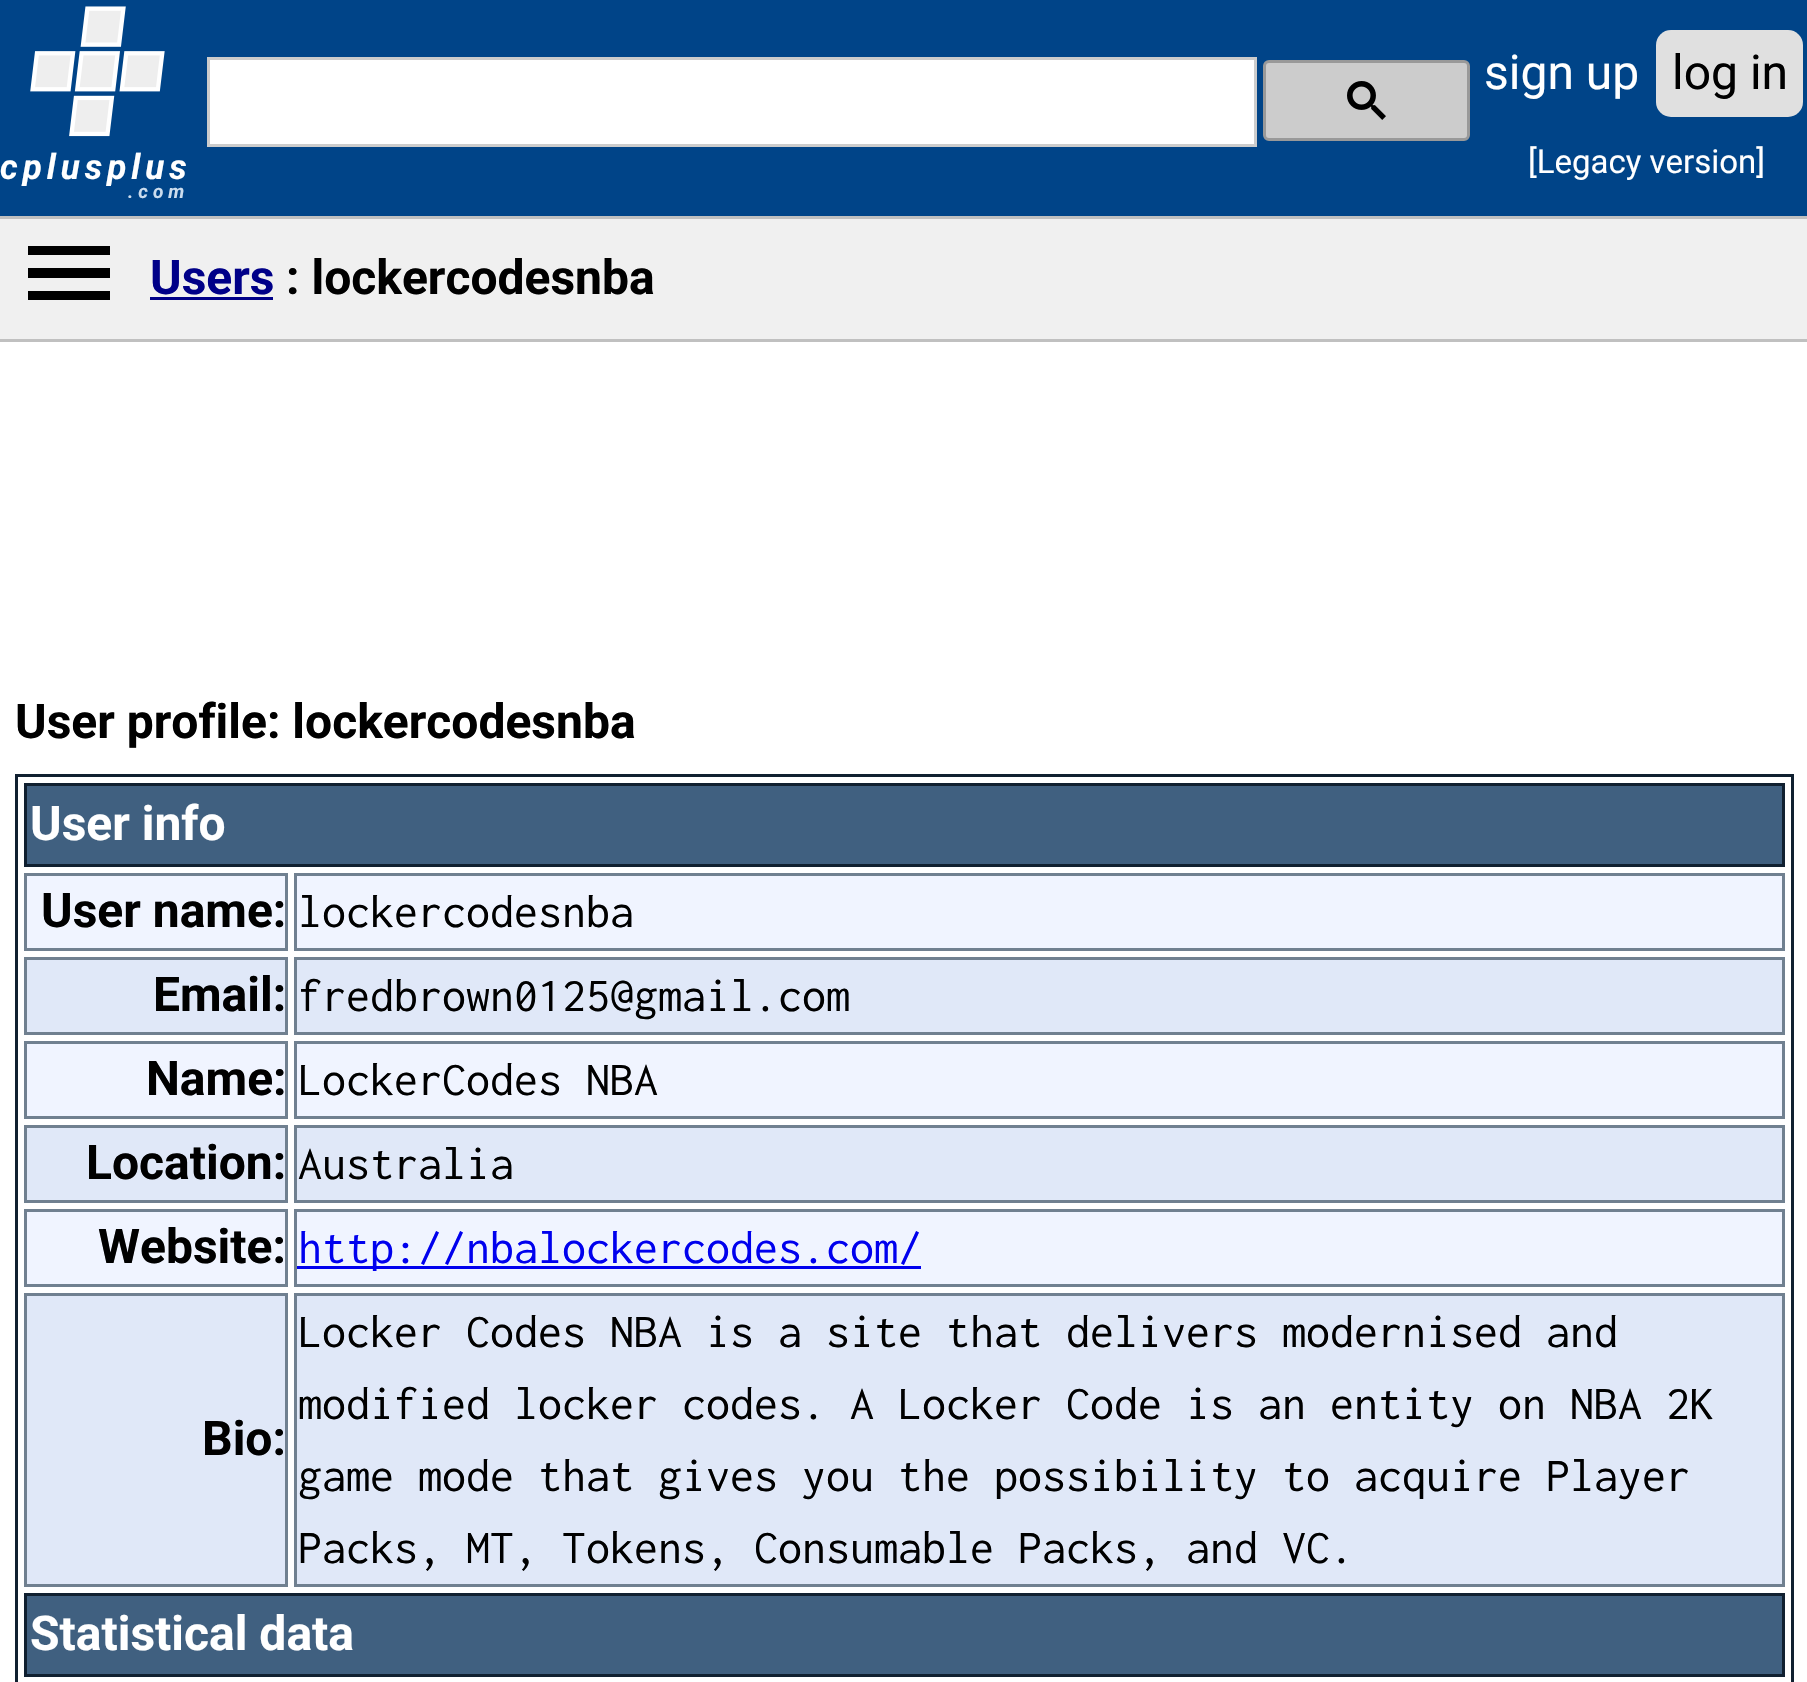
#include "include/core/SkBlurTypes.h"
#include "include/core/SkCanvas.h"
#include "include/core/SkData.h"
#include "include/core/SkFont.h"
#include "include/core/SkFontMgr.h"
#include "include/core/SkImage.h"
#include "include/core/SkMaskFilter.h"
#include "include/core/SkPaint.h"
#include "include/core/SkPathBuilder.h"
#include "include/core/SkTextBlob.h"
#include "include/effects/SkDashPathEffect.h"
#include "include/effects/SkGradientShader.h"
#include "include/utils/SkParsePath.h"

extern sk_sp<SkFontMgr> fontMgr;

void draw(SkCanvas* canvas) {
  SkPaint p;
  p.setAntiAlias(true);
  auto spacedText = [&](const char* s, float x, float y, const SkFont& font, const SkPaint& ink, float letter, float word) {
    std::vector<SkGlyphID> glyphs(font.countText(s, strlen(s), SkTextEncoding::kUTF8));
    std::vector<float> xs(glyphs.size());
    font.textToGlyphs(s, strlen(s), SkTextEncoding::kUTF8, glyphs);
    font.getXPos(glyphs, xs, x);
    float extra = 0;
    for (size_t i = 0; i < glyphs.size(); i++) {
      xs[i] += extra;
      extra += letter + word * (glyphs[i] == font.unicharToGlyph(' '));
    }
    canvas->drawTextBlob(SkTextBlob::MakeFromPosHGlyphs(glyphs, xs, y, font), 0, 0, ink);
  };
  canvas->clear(SK_ColorWHITE);
  p.setColor(SkColorSetRGB(0, 68, 136));
  canvas->drawRect(SkRect::MakeLTRB(0, 0, 1807, 216), p);
  p.setColor(SK_ColorWHITE);
  canvas->drawRect(SkRect::MakeLTRB(208.5f, 58.5f, 1255.5f, 145.5f), p);
  p.setStyle(SkPaint::kStroke_Style);
  p.setStrokeWidth(3);
  p.setColor(SkColorSetRGB(204, 204, 204));
  canvas->drawRect(SkRect::MakeLTRB(208.5f, 58.5f, 1255.5f, 145.5f), p);
  p.setStyle(SkPaint::kFill_Style);
  canvas->drawRoundRect(SkRect::MakeLTRB(1264.5f, 61.5f, 1468.5f, 139.5f), 4.5f, 4.5f, p);
  p.setStyle(SkPaint::kStroke_Style);
  p.setColor(SkColorSetRGB(153, 153, 153));
  canvas->drawRoundRect(SkRect::MakeLTRB(1264.5f, 61.5f, 1468.5f, 139.5f), 4.5f, 4.5f, p);
  canvas->drawImageRect(SkImages::DeferredFromEncodedData(SkData::MakeFromFileName("images/1.png")), SkRect::MakeLTRB(1347, 81, 1386, 120), SkSamplingOptions());
  p.setStyle(SkPaint::kFill_Style);
  p.setColor(SkColorSetRGB(224, 224, 224));
  canvas->drawRoundRect(SkRect::MakeLTRB(1656, 30, 1803, 117), 15, 15, p);
  canvas->drawImageRect(SkImages::DeferredFromEncodedData(SkData::MakeFromFileName("images/2.png")), SkRect::MakeLTRB(30, 6, 165, 137), SkSamplingOptions());
  p.setColor(SkColorSetRGB(240, 240, 240));
  canvas->drawRect(SkRect::MakeLTRB(0, 219, 1807, 339), p);
  p.setColor(SkColorSetRGB(192, 192, 192));
  canvas->drawRect(SkRect::MakeLTRB(0, 216, 1807, 219), p);
  canvas->drawRect(SkRect::MakeLTRB(0, 339, 1807, 342), p);
  p.setColor(SK_ColorBLACK);
  canvas->drawPath(SkPathBuilder().moveTo(28, 300).lineTo(110, 300).lineTo(110, 291).lineTo(28, 291).close().moveTo(28, 278).lineTo(110, 278).lineTo(110, 268).lineTo(28, 268).close().moveTo(28, 246).lineTo(28, 255).lineTo(110, 255).lineTo(110, 246).close().detach(), p);
  p.setColor(SkColorSetRGB(0, 0, 136));
  canvas->drawRect(SkRect::MakeLTRB(150, 297, 273, 300), p);
  p.setStyle(SkPaint::kStroke_Style);
  p.setColor(SkColorSetRGB(16, 32, 48));
  canvas->drawRect(SkRect::MakeLTRB(16.5f, 775.5f, 1792.5f, 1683.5f), p);
  p.setStyle(SkPaint::kFill_Style);
  p.setColor(SkColorSetRGB(64, 96, 128));
  canvas->drawRect(SkRect::MakeLTRB(25.5f, 784.5f, 1783.5f, 865.5f), p);
  p.setStyle(SkPaint::kStroke_Style);
  p.setColor(SkColorSetRGB(16, 32, 48));
  canvas->drawRect(SkRect::MakeLTRB(25.5f, 784.5f, 1783.5f, 865.5f), p);
  p.setStyle(SkPaint::kFill_Style);
  p.setColor(SkColorSetRGB(240, 244, 255));
  canvas->drawRect(SkRect::MakeLTRB(25.5f, 874.5f, 286.5f, 949.5f), p);
  p.setStyle(SkPaint::kStroke_Style);
  p.setColor(SkColorSetRGB(112, 128, 144));
  canvas->drawRect(SkRect::MakeLTRB(25.5f, 874.5f, 286.5f, 949.5f), p);
  p.setStyle(SkPaint::kFill_Style);
  p.setColor(SkColorSetRGB(240, 244, 255));
  canvas->drawRect(SkRect::MakeLTRB(295.5f, 874.5f, 1783.5f, 949.5f), p);
  p.setStyle(SkPaint::kStroke_Style);
  p.setColor(SkColorSetRGB(112, 128, 144));
  canvas->drawRect(SkRect::MakeLTRB(295.5f, 874.5f, 1783.5f, 949.5f), p);
  p.setStyle(SkPaint::kFill_Style);
  p.setColor(SkColorSetRGB(224, 232, 248));
  canvas->drawRect(SkRect::MakeLTRB(25.5f, 958.5f, 286.5f, 1033.5f), p);
  p.setStyle(SkPaint::kStroke_Style);
  p.setColor(SkColorSetRGB(112, 128, 144));
  canvas->drawRect(SkRect::MakeLTRB(25.5f, 958.5f, 286.5f, 1033.5f), p);
  p.setStyle(SkPaint::kFill_Style);
  p.setColor(SkColorSetRGB(224, 232, 248));
  canvas->drawRect(SkRect::MakeLTRB(295.5f, 958.5f, 1783.5f, 1033.5f), p);
  p.setStyle(SkPaint::kStroke_Style);
  p.setColor(SkColorSetRGB(112, 128, 144));
  canvas->drawRect(SkRect::MakeLTRB(295.5f, 958.5f, 1783.5f, 1033.5f), p);
  p.setStyle(SkPaint::kFill_Style);
  p.setColor(SkColorSetRGB(240, 244, 255));
  canvas->drawRect(SkRect::MakeLTRB(25.5f, 1042.5f, 286.5f, 1117.5f), p);
  p.setStyle(SkPaint::kStroke_Style);
  p.setColor(SkColorSetRGB(112, 128, 144));
  canvas->drawRect(SkRect::MakeLTRB(25.5f, 1042.5f, 286.5f, 1117.5f), p);
  p.setStyle(SkPaint::kFill_Style);
  p.setColor(SkColorSetRGB(240, 244, 255));
  canvas->drawRect(SkRect::MakeLTRB(295.5f, 1042.5f, 1783.5f, 1117.5f), p);
  p.setStyle(SkPaint::kStroke_Style);
  p.setColor(SkColorSetRGB(112, 128, 144));
  canvas->drawRect(SkRect::MakeLTRB(295.5f, 1042.5f, 1783.5f, 1117.5f), p);
  p.setStyle(SkPaint::kFill_Style);
  p.setColor(SkColorSetRGB(224, 232, 248));
  canvas->drawRect(SkRect::MakeLTRB(25.5f, 1126.5f, 286.5f, 1201.5f), p);
  p.setStyle(SkPaint::kStroke_Style);
  p.setColor(SkColorSetRGB(112, 128, 144));
  canvas->drawRect(SkRect::MakeLTRB(25.5f, 1126.5f, 286.5f, 1201.5f), p);
  p.setStyle(SkPaint::kFill_Style);
  p.setColor(SkColorSetRGB(224, 232, 248));
  canvas->drawRect(SkRect::MakeLTRB(295.5f, 1126.5f, 1783.5f, 1201.5f), p);
  p.setStyle(SkPaint::kStroke_Style);
  p.setColor(SkColorSetRGB(112, 128, 144));
  canvas->drawRect(SkRect::MakeLTRB(295.5f, 1126.5f, 1783.5f, 1201.5f), p);
  p.setStyle(SkPaint::kFill_Style);
  p.setColor(SkColorSetRGB(240, 244, 255));
  canvas->drawRect(SkRect::MakeLTRB(25.5f, 1210.5f, 286.5f, 1285.5f), p);
  p.setStyle(SkPaint::kStroke_Style);
  p.setColor(SkColorSetRGB(112, 128, 144));
  canvas->drawRect(SkRect::MakeLTRB(25.5f, 1210.5f, 286.5f, 1285.5f), p);
  p.setStyle(SkPaint::kFill_Style);
  p.setColor(SkColorSetRGB(240, 244, 255));
  canvas->drawRect(SkRect::MakeLTRB(295.5f, 1210.5f, 1783.5f, 1285.5f), p);
  p.setStyle(SkPaint::kStroke_Style);
  p.setColor(SkColorSetRGB(112, 128, 144));
  canvas->drawRect(SkRect::MakeLTRB(295.5f, 1210.5f, 1783.5f, 1285.5f), p);
  p.setStyle(SkPaint::kFill_Style);
  p.setColor(SkColorSetRGB(0, 0, 238));
  canvas->drawRect(SkRect::MakeLTRB(297, 1266, 921, 1269), p);
  p.setColor(SkColorSetRGB(224, 232, 248));
  canvas->drawRect(SkRect::MakeLTRB(25.5f, 1294.5f, 286.5f, 1585.5f), p);
  p.setStyle(SkPaint::kStroke_Style);
  p.setColor(SkColorSetRGB(112, 128, 144));
  canvas->drawRect(SkRect::MakeLTRB(25.5f, 1294.5f, 286.5f, 1585.5f), p);
  p.setStyle(SkPaint::kFill_Style);
  p.setColor(SkColorSetRGB(224, 232, 248));
  canvas->drawRect(SkRect::MakeLTRB(295.5f, 1294.5f, 1783.5f, 1585.5f), p);
  p.setStyle(SkPaint::kStroke_Style);
  p.setColor(SkColorSetRGB(112, 128, 144));
  canvas->drawRect(SkRect::MakeLTRB(295.5f, 1294.5f, 1783.5f, 1585.5f), p);
  p.setStyle(SkPaint::kFill_Style);
  p.setColor(SkColorSetRGB(64, 96, 128));
  canvas->drawRect(SkRect::MakeLTRB(25.5f, 1594.5f, 1783.5f, 1675.5f), p);
  p.setStyle(SkPaint::kStroke_Style);
  p.setColor(SkColorSetRGB(16, 32, 48));
  canvas->drawRect(SkRect::MakeLTRB(25.5f, 1594.5f, 1783.5f, 1675.5f), p);
  SkFont font1(fontMgr->matchFamilyStyle("Roboto", SkFontStyle::Normal()), 48);
  font1.setSubpixel(true);
  p.setStyle(SkPaint::kFill_Style);
  p.setColor(SK_ColorWHITE);
  canvas->drawString("sign up", 1484, 89, font1, p);
  p.setColor(SK_ColorBLACK);
  canvas->drawString("log in", 1672, 89, font1, p);
  SkFont font2(fontMgr->matchFamilyStyle("Roboto", SkFontStyle::Normal()), 33);
  font2.setSubpixel(true);
  p.setColor(SK_ColorWHITE);
  canvas->drawString("[Legacy version]", 1528, 173, font2, p);
  SkFont font3(fontMgr->matchFamilyStyle("Roboto", SkFontStyle::BoldItalic()), 35);
  font3.setSubpixel(true);
  spacedText("cplusplus", 0, 179, font3, p, 5, 0);
  SkFont font4(fontMgr->matchFamilyStyle("Roboto", SkFontStyle::BoldItalic()), 19);
  font4.setSubpixel(true);
  p.setColor(SkColorSetRGB(204, 221, 238));
  spacedText(".com", 128, 198, font4, p, 5, 0);
  SkFont font5(fontMgr->matchFamilyStyle("Roboto", SkFontStyle::Bold()), 48);
  font5.setSubpixel(true);
  p.setColor(SkColorSetRGB(0, 0, 136));
  canvas->drawString("Users", 150, 294, font5, p);
  p.setColor(SK_ColorBLACK);
  canvas->drawString(": lockercodesnba", 286, 294, font5, p);
  canvas->drawString("User profile: lockercodesnba", 15, 738, font5, p);
  p.setColor(SK_ColorWHITE);
  canvas->drawString("User info", 30, 840, font5, p);
  p.setColor(SK_ColorBLACK);
  canvas->drawString("User name:", 41, 927, font5, p);
  SkFont font6(fontMgr->matchFamilyStyle("Inconsolata", SkFontStyle::Normal()), 48);
  font6.setSubpixel(true);
  canvas->drawString("lockercodesnba", 298, 927, font6, p);
  canvas->drawString("Email:", 153, 1011, font5, p);
  canvas->drawString("fredbrown0125@gmail.com", 298, 1011, font6, p);
  canvas->drawString("Name:", 146, 1095, font5, p);
  canvas->drawString("LockerCodes NBA", 298, 1095, font6, p);
  canvas->drawString("Location:", 86, 1179, font5, p);
  canvas->drawString("Australia", 298, 1179, font6, p);
  canvas->drawString("Website:", 98, 1263, font5, p);
  p.setColor(SkColorSetRGB(0, 0, 238));
  canvas->drawString("http://nbalockercodes.com/", 298, 1263, font6, p);
  p.setColor(SK_ColorBLACK);
  canvas->drawString("Bio:", 202, 1455, font5, p);
  canvas->drawString("Locker Codes NBA is a site that delivers modernised and", 298, 1347, font6, p);
  canvas->drawString("modified locker codes. A Locker Code is an entity on NBA 2K", 298, 1419, font6, p);
  canvas->drawString("game mode that gives you the possibility to acquire Player", 298, 1491, font6, p);
  canvas->drawString("Packs, MT, Tokens, Consumable Packs, and VC.", 298, 1563, font6, p);
  p.setColor(SK_ColorWHITE);
  canvas->drawString("Statistical data", 30, 1650, font5, p);
}
